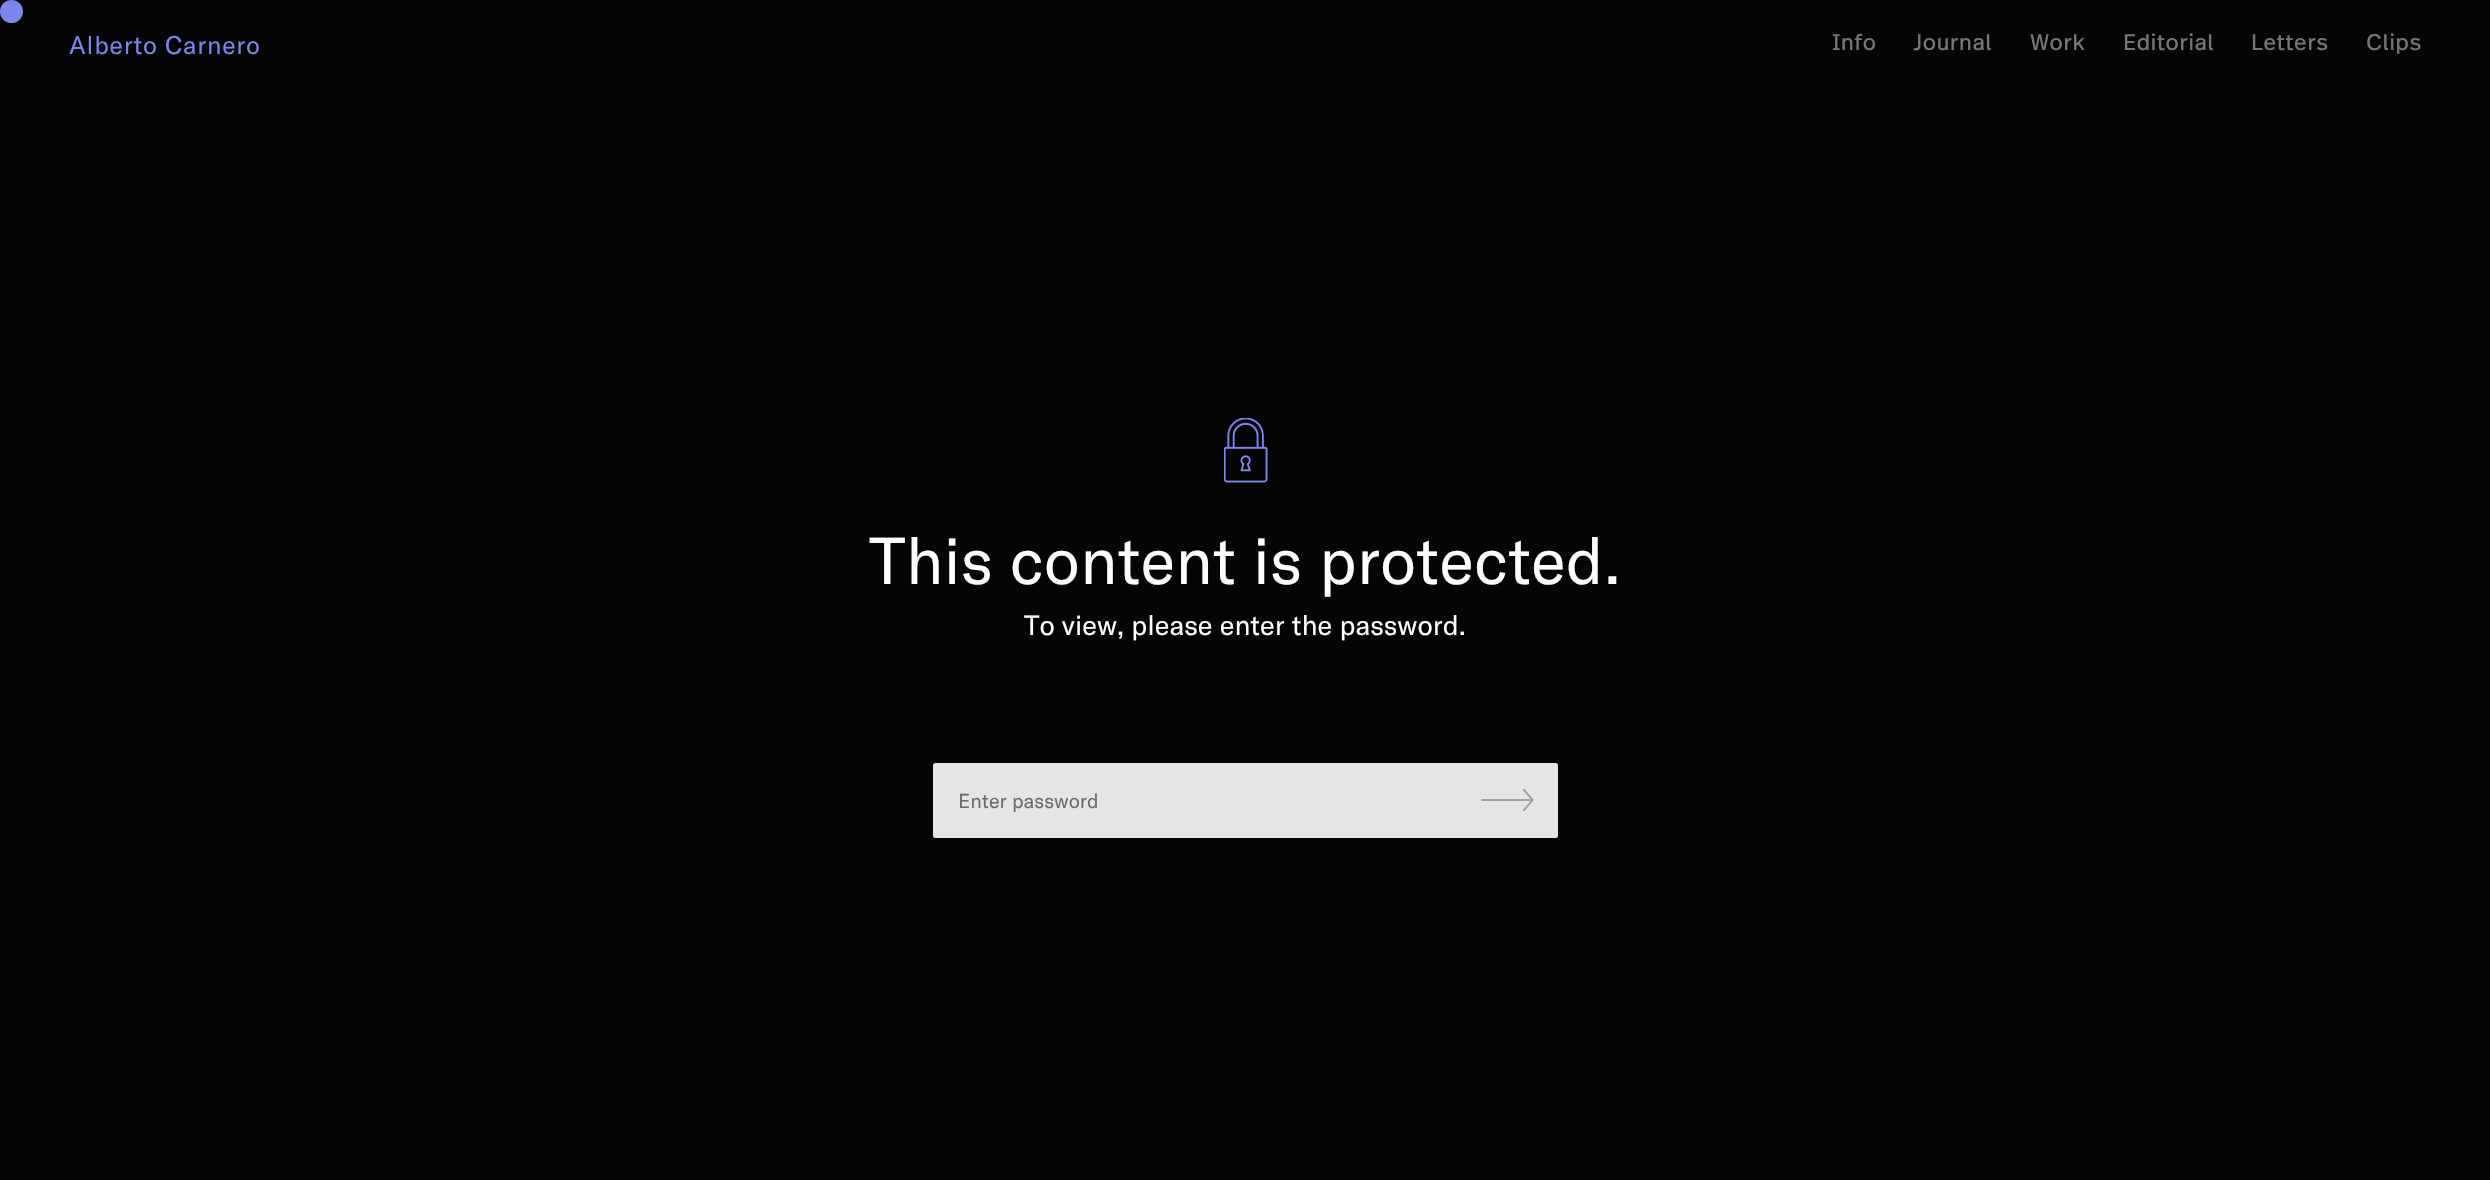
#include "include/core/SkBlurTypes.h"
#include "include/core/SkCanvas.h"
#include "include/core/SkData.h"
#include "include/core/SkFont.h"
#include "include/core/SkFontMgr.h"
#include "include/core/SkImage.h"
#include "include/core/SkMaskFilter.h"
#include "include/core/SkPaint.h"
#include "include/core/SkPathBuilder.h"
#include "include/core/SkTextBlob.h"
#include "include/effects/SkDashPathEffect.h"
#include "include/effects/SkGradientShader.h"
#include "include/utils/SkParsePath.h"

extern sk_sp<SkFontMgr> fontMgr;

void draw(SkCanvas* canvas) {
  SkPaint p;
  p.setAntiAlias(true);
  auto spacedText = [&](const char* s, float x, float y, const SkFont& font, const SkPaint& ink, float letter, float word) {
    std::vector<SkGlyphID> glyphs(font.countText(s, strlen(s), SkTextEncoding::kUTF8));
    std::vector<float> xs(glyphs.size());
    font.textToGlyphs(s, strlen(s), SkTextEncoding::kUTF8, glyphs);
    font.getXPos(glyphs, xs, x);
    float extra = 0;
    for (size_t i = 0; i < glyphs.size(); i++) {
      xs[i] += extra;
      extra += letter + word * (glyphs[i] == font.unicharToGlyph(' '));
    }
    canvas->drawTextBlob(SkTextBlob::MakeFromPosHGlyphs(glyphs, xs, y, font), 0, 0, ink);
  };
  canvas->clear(SkColorSetRGB(5, 5, 5));
  p.setColor(SkColorSetRGB(123, 134, 237));
  canvas->drawCircle(11.5f, 11.5f, 11.5f, p);
  canvas->drawImageRect(SkImages::DeferredFromEncodedData(SkData::MakeFromFileName("images/1.png")), SkRect::MakeLTRB(1224, 418, 1268, 483), SkSamplingOptions());
  p.setColor(SkColorSetRGB(229, 229, 229));
  canvas->drawRoundRect(SkRect::MakeLTRB(933, 763, 1558, 838), 2.5f, 2.5f, p);
  canvas->drawImageRect(SkImages::DeferredFromEncodedData(SkData::MakeFromFileName("images/2.png")), SkRect::MakeLTRB(1481, 789, 1534, 812), SkSamplingOptions());
  SkFont font1(fontMgr->matchFamilyStyle("GT America", SkFontStyle::Normal()), 25);
  font1.setSubpixel(true);
  p.setColor(SkColorSetRGB(123, 134, 237));
  spacedText("Alberto Carnero", 69, 54, font1, p, 0.75f, 0);
  SkFont font2(fontMgr->matchFamilyStyle("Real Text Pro", SkFontStyle::Normal()), 22.5f);
  font2.setSubpixel(true);
  p.setColor(SkColorSetRGB(117, 117, 117));
  spacedText("Info", 1832, 50, font2, p, 0.25f, 0);
  spacedText("Journal", 1913, 50, font2, p, 0.25f, 0);
  spacedText("Work", 2030, 50, font2, p, 0.25f, 0);
  spacedText("Editorial", 2123, 50, font2, p, 0.25f, 0);
  spacedText("Letters", 2251, 50, font2, p, 0.25f, 0);
  spacedText("Clips", 2366, 50, font2, p, 0.25f, 0);
  SkFont font3(fontMgr->matchFamilyStyle("GT America", SkFontStyle::Normal()), 65);
  font3.setSubpixel(true);
  p.setColor(SK_ColorWHITE);
  canvas->drawString("This content is protected.", 869, 584, font3, p);
  SkFont font4(fontMgr->matchFamilyStyle("GT America", SkFontStyle::Normal()), 27.5f);
  font4.setSubpixel(true);
  canvas->drawString("To view, please enter the password.", 1024, 635, font4, p);
  SkFont font5(fontMgr->matchFamilyStyle("GT America", SkFontStyle::Normal()), 20);
  font5.setSubpixel(true);
  p.setColor(SkColorSetRGB(109, 109, 109));
  canvas->drawString("Enter password", 958, 808, font5, p);
}
